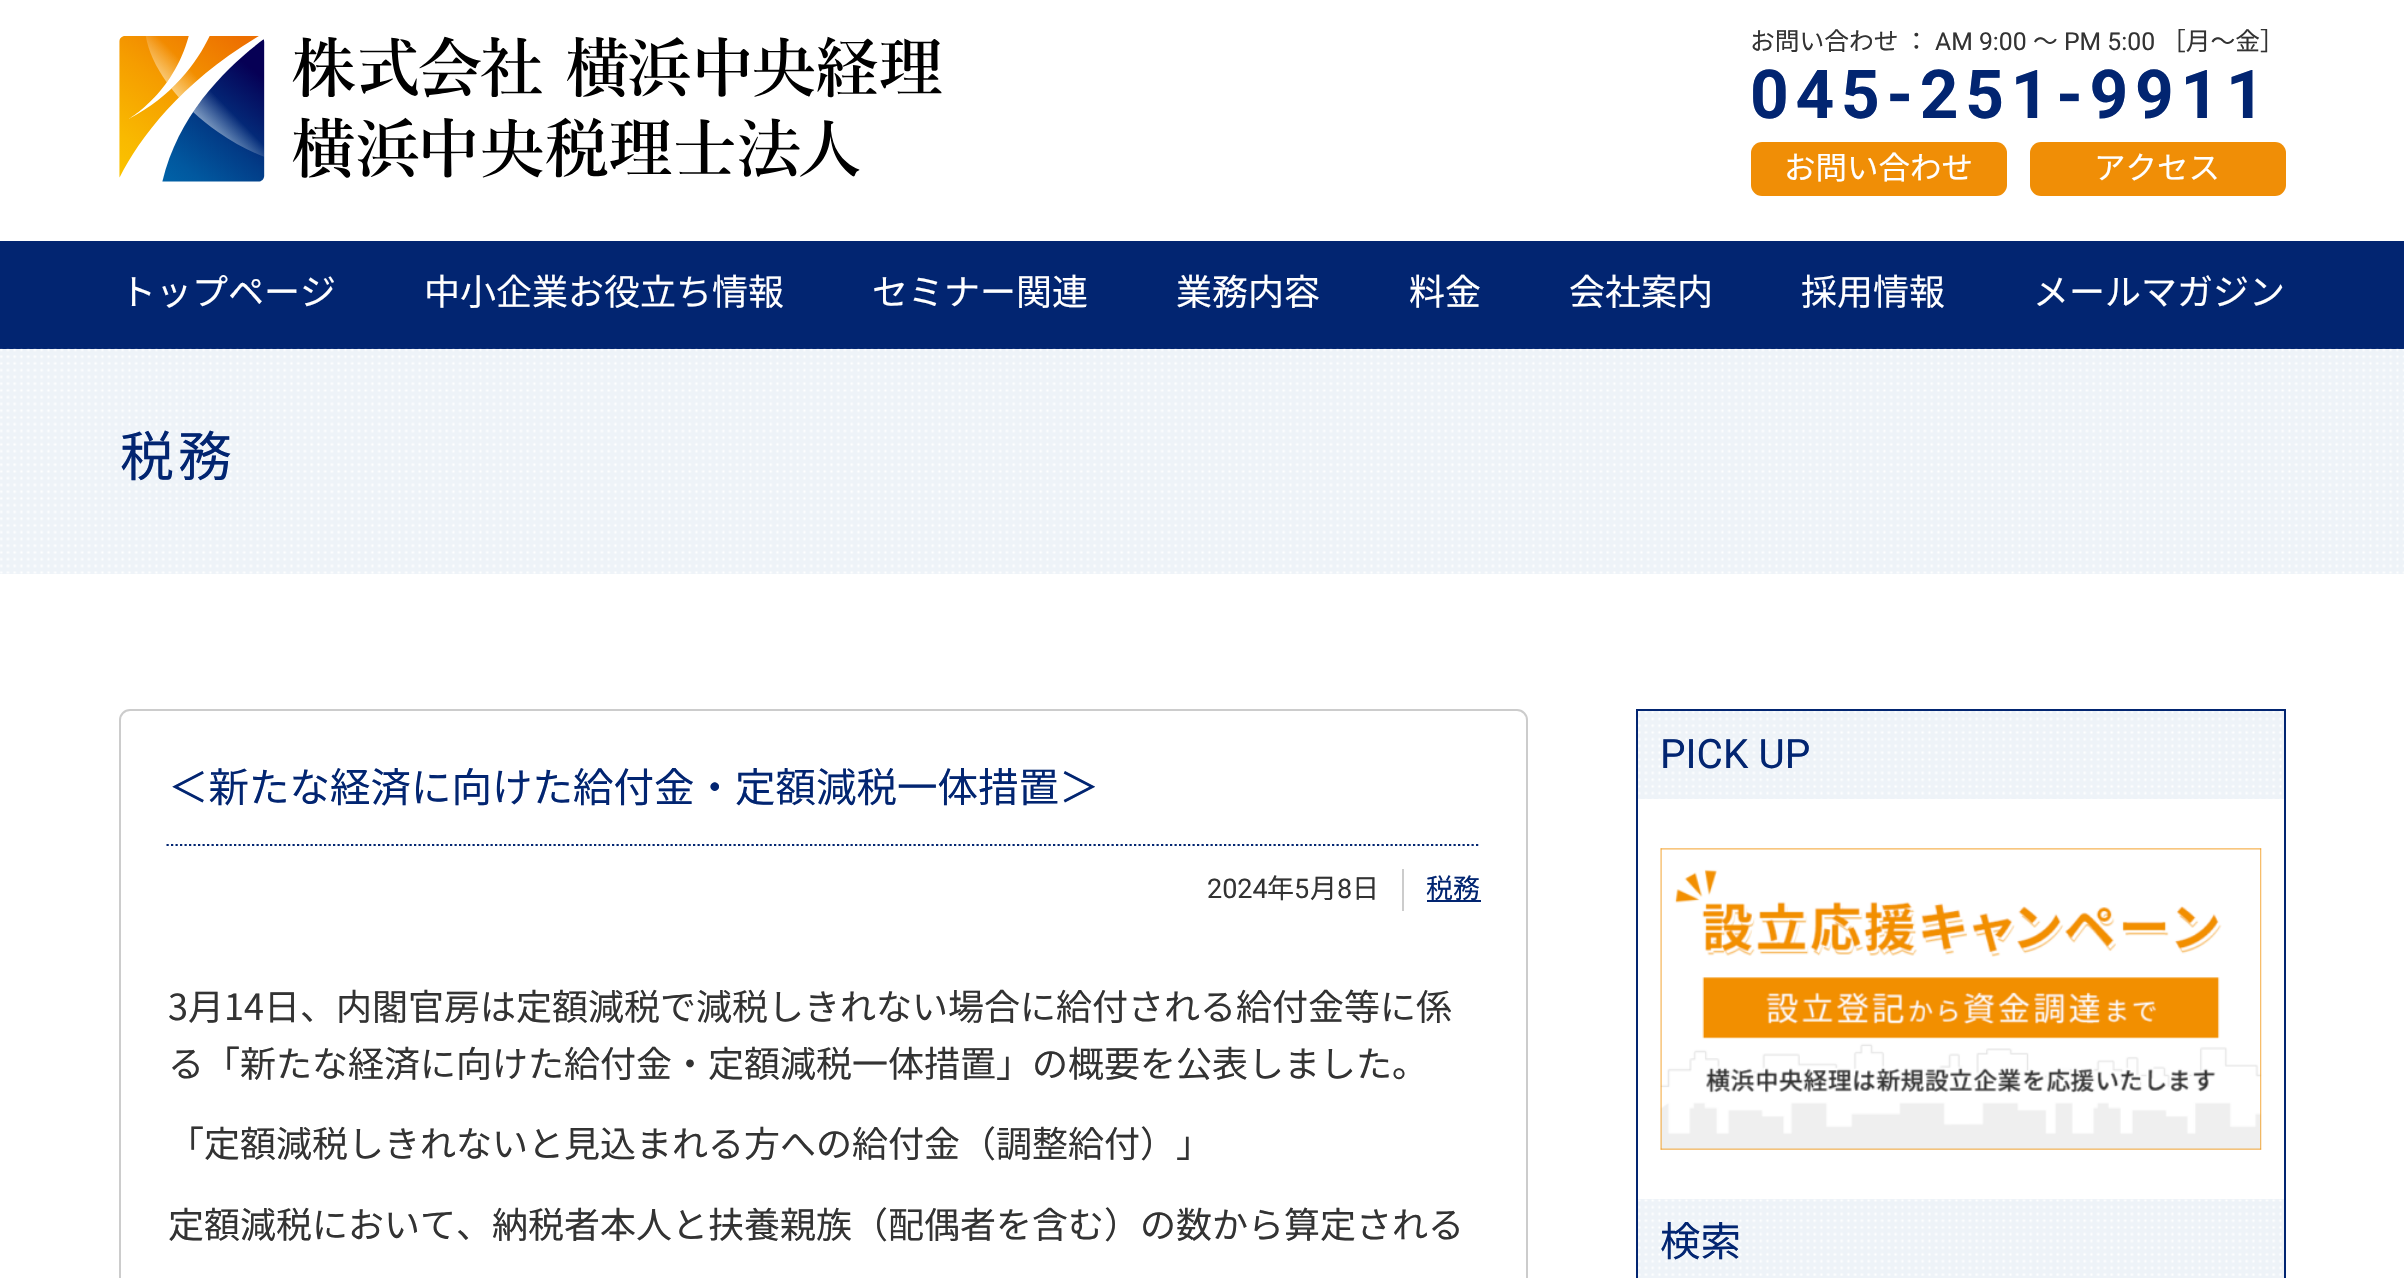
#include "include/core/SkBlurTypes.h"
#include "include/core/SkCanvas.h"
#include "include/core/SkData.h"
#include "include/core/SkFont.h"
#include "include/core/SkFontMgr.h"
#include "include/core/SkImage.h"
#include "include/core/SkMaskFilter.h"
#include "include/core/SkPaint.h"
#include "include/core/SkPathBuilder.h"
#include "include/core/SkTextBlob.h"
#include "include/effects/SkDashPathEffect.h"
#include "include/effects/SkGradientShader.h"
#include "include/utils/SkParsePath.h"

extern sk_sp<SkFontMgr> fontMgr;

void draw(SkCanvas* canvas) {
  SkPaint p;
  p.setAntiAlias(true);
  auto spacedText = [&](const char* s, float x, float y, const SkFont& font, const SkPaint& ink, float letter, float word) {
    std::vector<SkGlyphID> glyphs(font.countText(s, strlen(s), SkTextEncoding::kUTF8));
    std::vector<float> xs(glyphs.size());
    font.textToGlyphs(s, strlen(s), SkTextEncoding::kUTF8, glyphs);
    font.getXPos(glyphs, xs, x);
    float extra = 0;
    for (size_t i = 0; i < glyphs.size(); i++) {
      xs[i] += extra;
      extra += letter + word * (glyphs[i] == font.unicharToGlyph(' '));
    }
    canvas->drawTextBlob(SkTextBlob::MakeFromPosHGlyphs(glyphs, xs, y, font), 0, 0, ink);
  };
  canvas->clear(SK_ColorWHITE);
  canvas->drawImageRect(SkImages::DeferredFromEncodedData(SkData::MakeFromFileName("images/1.png")), SkRect::MakeLTRB(119, 36, 942, 182), SkSamplingOptions());
  p.setColor(SkColorSetRGB(240, 142, 6));
  canvas->drawRoundRect(SkRect::MakeLTRB(1751, 142, 2007, 196), 11, 11, p);
  canvas->drawRoundRect(SkRect::MakeLTRB(2030, 142, 2286, 196), 11, 11, p);
  p.setColor(SkColorSetRGB(2, 37, 113));
  canvas->drawRect(SkRect::MakeLTRB(0, 241, 2404, 349), p);
  p.setColor(SkColorSetRGB(238, 243, 248));
  canvas->drawRect(SkRect::MakeLTRB(0, 349, 2404, 574), p);
  canvas->drawImageRect(SkImages::DeferredFromEncodedData(SkData::MakeFromFileName("images/2.png")), SkRect::MakeLTRB(0, 348, 2404, 574), SkSamplingOptions());
  p.setStyle(SkPaint::kStroke_Style);
  p.setStrokeWidth(2);
  p.setColor(SkColorSetRGB(204, 204, 204));
  canvas->drawRoundRect(SkRect::MakeLTRB(120, 710, 1527, 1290), 10, 10, p);
  p.setStrokeWidth(2.2f);
  p.setColor(SkColorSetRGB(2, 37, 113));
  p.setPathEffect(SkDashPathEffect::Make({{2.25f, 2.25f}}, 0));
  canvas->drawPath(SkPathBuilder().moveTo(166.5f, 845).lineTo(1480.5f, 845).detach(), p);
  p.setPathEffect(nullptr);
  p.setStyle(SkPaint::kFill_Style);
  p.setColor(SkColorSetRGB(204, 204, 204));
  canvas->drawRect(SkRect::MakeLTRB(1402, 869, 1404, 911), p);
  p.setColor(SkColorSetRGB(2, 37, 113));
  canvas->drawRect(SkRect::MakeLTRB(1427, 900, 1481, 902), p);
  p.setStyle(SkPaint::kStroke_Style);
  p.setStrokeWidth(2);
  canvas->drawRect(SkRect::MakeLTRB(1637, 710, 2285, 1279), p);
  p.setStyle(SkPaint::kFill_Style);
  p.setColor(SkColorSetRGB(238, 243, 248));
  canvas->drawRect(SkRect::MakeLTRB(1638, 711, 2284, 799), p);
  canvas->drawImageRect(SkImages::DeferredFromEncodedData(SkData::MakeFromFileName("images/3.png")), SkRect::MakeLTRB(1638, 711, 2282, 799), SkSamplingOptions());
  canvas->drawImageRect(SkImages::DeferredFromEncodedData(SkData::MakeFromFileName("images/4.png")), SkRect::MakeLTRB(1660, 848, 2262, 1150), SkSamplingOptions());
  canvas->drawRect(SkRect::MakeLTRB(1638, 1199, 2284, 1278), p);
  canvas->drawImageRect(SkImages::DeferredFromEncodedData(SkData::MakeFromFileName("images/5.png")), SkRect::MakeLTRB(1638, 1199, 2282, 1276), SkSamplingOptions());
  SkFont font1(fontMgr->matchFamilyStyle("Noto Sans JP", SkFontStyle::Normal()), 24.75f);
  font1.setSubpixel(true);
  p.setColor(SkColorSetRGB(51, 51, 51));
  canvas->drawString("お問い合わせ", 1750, 50, font1, p);
  canvas->drawString("：", 1904, 50, font1, p);
  SkFont font2(fontMgr->matchFamilyStyle("Roboto", SkFontStyle::Normal()), 24.75f);
  font2.setSubpixel(true);
  canvas->drawString("AM 9:00", 1935, 50, font2, p);
  canvas->drawString("〜", 2033, 50, font1, p);
  canvas->drawString("PM 5:00", 2064, 50, font2, p);
  canvas->drawString("［月〜金］", 2161, 50, font1, p);
  SkFont font3(fontMgr->matchFamilyStyle("Roboto", SkFontStyle::Bold()), 67.5f);
  font3.setSubpixel(true);
  p.setColor(SkColorSetRGB(2, 37, 113));
  spacedText("045-251-9911", 1750, 118, font3, p, 6.75f, 0);
  SkFont font4(fontMgr->matchFamilyStyle("Noto Sans JP", SkFontStyle::Normal()), 31.5f);
  font4.setSubpixel(true);
  p.setColor(SK_ColorWHITE);
  canvas->drawString("お問い合わせ", 1784, 179, font4, p);
  canvas->drawString("アクセス", 2094, 179, font4, p);
  SkFont font5(fontMgr->matchFamilyStyle("Noto Sans JP", SkFontStyle::Normal()), 36);
  font5.setSubpixel(true);
  canvas->drawString("トップページ", 120, 305, font5, p);
  canvas->drawString("中小企業お役立ち情報", 424, 305, font5, p);
  canvas->drawString("セミナー関連", 872, 305, font5, p);
  canvas->drawString("業務内容", 1176, 305, font5, p);
  canvas->drawString("料金", 1409, 305, font5, p);
  canvas->drawString("会社案内", 1569, 305, font5, p);
  canvas->drawString("採用情報", 1801, 305, font5, p);
  canvas->drawString("メールマガジン", 2033, 305, font5, p);
  SkFont font6(fontMgr->matchFamilyStyle("Noto Sans JP", SkFontStyle::Normal()), 54);
  font6.setSubpixel(true);
  p.setColor(SkColorSetRGB(2, 37, 113));
  spacedText("税務", 120, 476, font6, p, 4, 0);
  SkFont font7(fontMgr->matchFamilyStyle("Noto Sans JP", SkFontStyle::Normal()), 40.5f);
  font7.setSubpixel(true);
  canvas->drawString("＜新たな経済に向けた給付金・定額減税一体措置＞", 168, 802, font7, p);
  SkFont font8(fontMgr->matchFamilyStyle("Roboto", SkFontStyle::Normal()), 27);
  font8.setSubpixel(true);
  p.setColor(SkColorSetRGB(51, 51, 51));
  canvas->drawString("2024", 1207, 898, font8, p);
  SkFont font9(fontMgr->matchFamilyStyle("Noto Sans JP", SkFontStyle::Normal()), 27);
  font9.setSubpixel(true);
  canvas->drawString("年", 1267, 898, font9, p);
  canvas->drawString("5", 1294, 898, font8, p);
  canvas->drawString("月", 1310, 898, font9, p);
  canvas->drawString("8", 1337, 898, font8, p);
  canvas->drawString("日", 1352, 898, font9, p);
  p.setColor(SkColorSetRGB(2, 37, 113));
  canvas->drawString("税務", 1426, 898, font9, p);
  p.setColor(SkColorSetRGB(51, 51, 51));
  canvas->drawString("3月14日、内閣官房は定額減税で減税しきれない場合に給付される給付金等に係", 168, 1020, font5, p);
  canvas->drawString("る「新たな経済に向けた給付金・定額減税一体措置」の概要を公表しました。", 168, 1077, font5, p);
  canvas->drawString("「定額減税しきれないと見込まれる方への給付金（調整給付）」", 168, 1157, font5, p);
  canvas->drawString("定額減税において、納税者本人と扶養親族（配偶者を含む）の数から算定される", 168, 1238, font5, p);
  SkFont font10(fontMgr->matchFamilyStyle("Roboto", SkFontStyle::Normal()), 40.5f);
  font10.setSubpixel(true);
  p.setColor(SkColorSetRGB(2, 37, 113));
  canvas->drawString("PICK UP", 1660, 768, font10, p);
  canvas->drawString("検索", 1660, 1256, font7, p);
}
